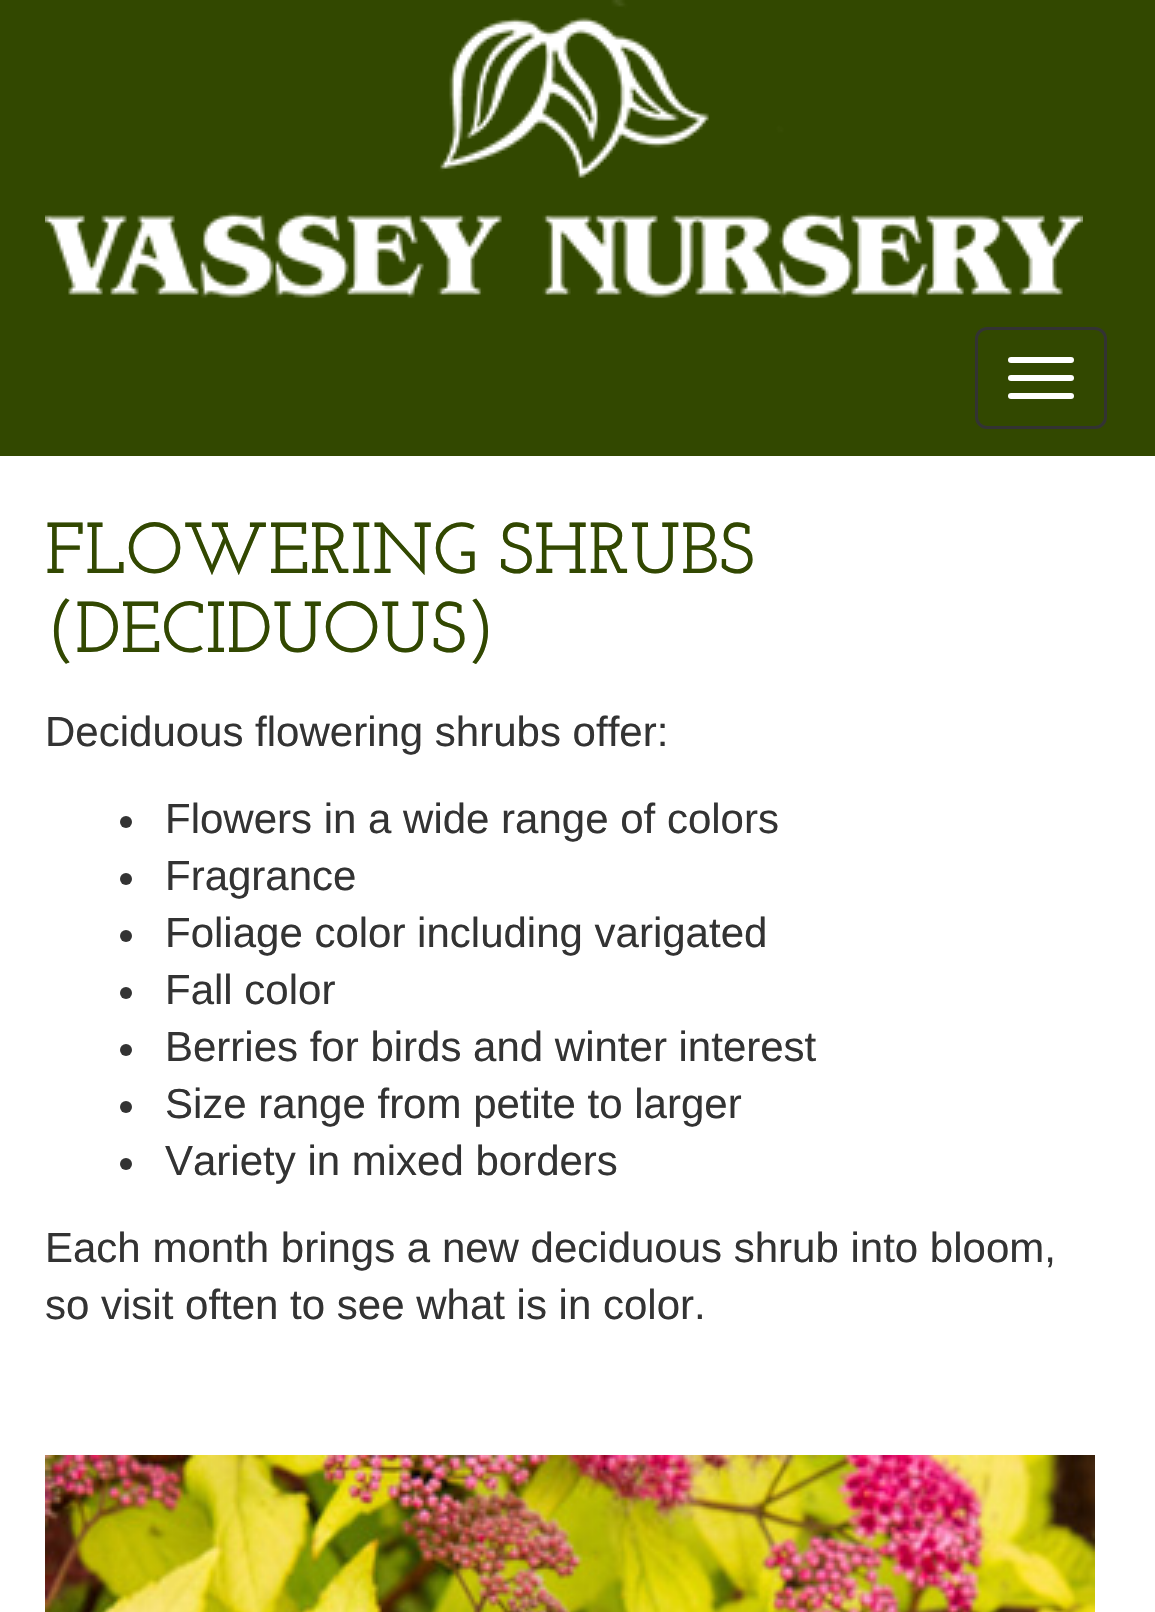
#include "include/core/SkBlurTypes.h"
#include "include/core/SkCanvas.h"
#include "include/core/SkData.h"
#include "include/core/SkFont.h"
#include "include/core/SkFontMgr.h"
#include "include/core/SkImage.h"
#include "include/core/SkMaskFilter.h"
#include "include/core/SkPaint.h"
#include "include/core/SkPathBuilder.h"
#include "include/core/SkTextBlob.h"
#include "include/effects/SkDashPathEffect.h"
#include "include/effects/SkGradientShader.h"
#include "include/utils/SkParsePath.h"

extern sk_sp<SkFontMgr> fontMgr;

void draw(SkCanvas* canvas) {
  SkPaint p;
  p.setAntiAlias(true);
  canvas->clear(SkColorSetRGB(50, 72, 0));
  canvas->drawImageRect(SkImages::DeferredFromEncodedData(SkData::MakeFromFileName("images/1.png")), SkRect::MakeLTRB(45, 0, 1083, 298), SkSamplingOptions());
  p.setStyle(SkPaint::kStroke_Style);
  p.setStrokeWidth(3);
  p.setColor(SkColorSetRGB(51, 51, 51));
  canvas->drawRoundRect(SkRect::MakeLTRB(976.5f, 328.5f, 1105.5f, 427.5f), 10.5f, 10.5f, p);
  p.setStyle(SkPaint::kFill_Style);
  p.setColor(SK_ColorWHITE);
  canvas->drawRoundRect(SkRect::MakeLTRB(1008, 357, 1074, 363), 3, 3, p);
  canvas->drawRoundRect(SkRect::MakeLTRB(1008, 375, 1074, 381), 3, 3, p);
  canvas->drawRoundRect(SkRect::MakeLTRB(1008, 393, 1074, 399), 3, 3, p);
  canvas->drawRect(SkRect::MakeLTRB(0, 456, 1155, 1612), p);
  p.setColor(SkColorSetRGB(51, 51, 51));
  canvas->drawCircle(126, 822, 6, p);
  canvas->drawCircle(126, 879, 6, p);
  canvas->drawCircle(126, 936, 6, p);
  canvas->drawCircle(126, 993, 6, p);
  canvas->drawCircle(126, 1050, 6, p);
  canvas->drawCircle(126, 1107, 6, p);
  canvas->drawCircle(126, 1164, 6, p);
  canvas->drawImageRect(SkImages::DeferredFromEncodedData(SkData::MakeFromFileName("images/2.png")), SkRect::MakeLTRB(45, 1455, 1095, 1612), SkSamplingOptions());
  SkFont font1(fontMgr->matchFamilyStyle("Josefin Slab", SkFontStyle(100, SkFontStyle::kNormal_Width, SkFontStyle::kUpright_Slant)), 72);
  font1.setSubpixel(true);
  p.setColor(SkColorSetRGB(50, 72, 1));
  canvas->drawString("FLOWERING SHRUBS", 45, 573, font1, p);
  canvas->drawString("(DECIDUOUS)", 45, 652, font1, p);
  SkFont font2(fontMgr->matchFamilyStyle("Liberation Sans", SkFontStyle::Normal()), 42);
  font2.setSubpixel(true);
  p.setColor(SkColorSetRGB(51, 51, 51));
  canvas->drawString("Deciduous flowering shrubs offer:", 45, 746, font2, p);
  canvas->drawString("Flowers in a wide range of colors", 165, 833, font2, p);
  canvas->drawString("Fragrance", 165, 890, font2, p);
  canvas->drawString("Foliage color including varigated", 165, 947, font2, p);
  canvas->drawString("Fall color", 165, 1004, font2, p);
  canvas->drawString("Berries for birds and winter interest", 165, 1061, font2, p);
  canvas->drawString("Size range from petite to larger", 165, 1118, font2, p);
  canvas->drawString("Variety in mixed borders", 165, 1175, font2, p);
  canvas->drawString("Each month brings a new deciduous shrub into bloom,", 45, 1262, font2, p);
  canvas->drawString("so visit often to see what is in color.", 45, 1319, font2, p);
}
